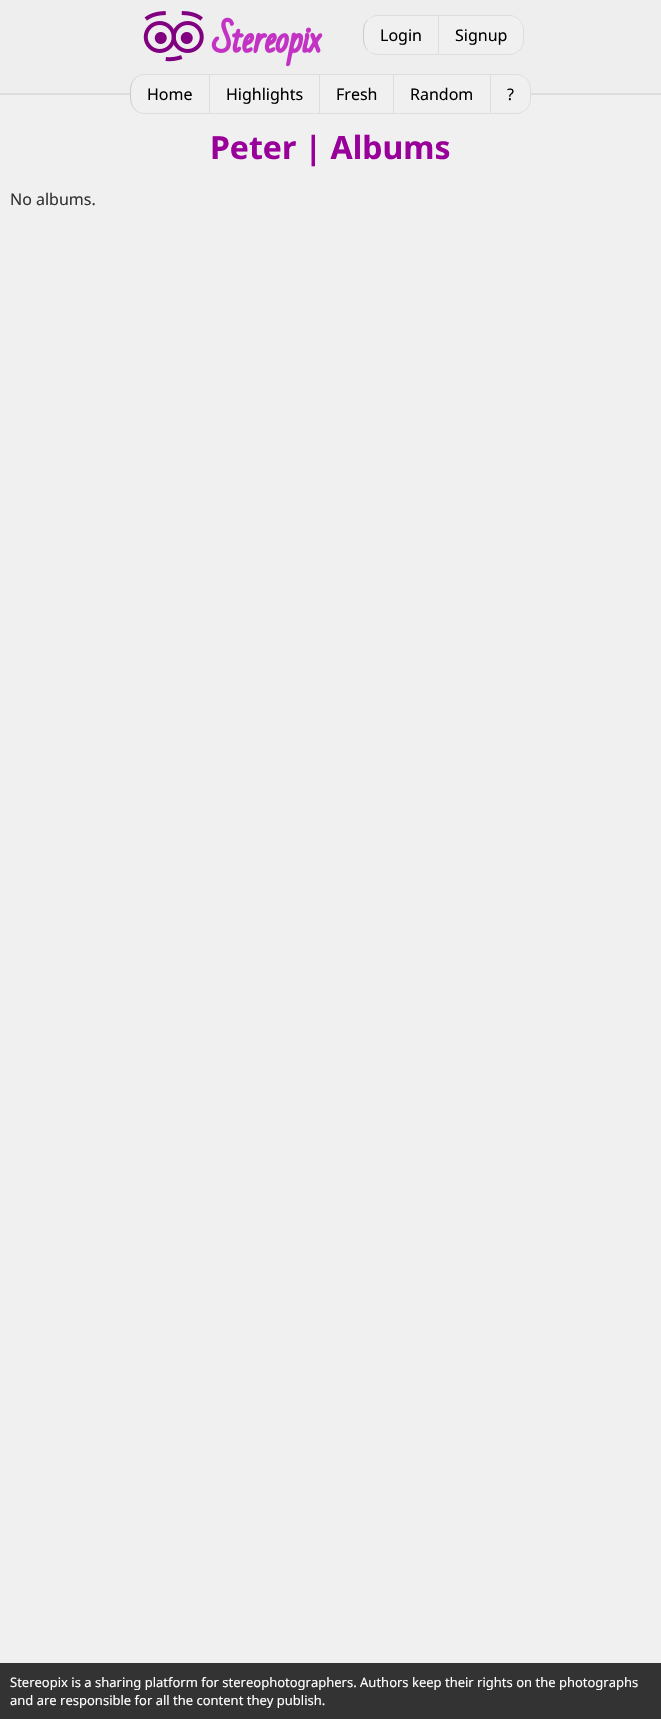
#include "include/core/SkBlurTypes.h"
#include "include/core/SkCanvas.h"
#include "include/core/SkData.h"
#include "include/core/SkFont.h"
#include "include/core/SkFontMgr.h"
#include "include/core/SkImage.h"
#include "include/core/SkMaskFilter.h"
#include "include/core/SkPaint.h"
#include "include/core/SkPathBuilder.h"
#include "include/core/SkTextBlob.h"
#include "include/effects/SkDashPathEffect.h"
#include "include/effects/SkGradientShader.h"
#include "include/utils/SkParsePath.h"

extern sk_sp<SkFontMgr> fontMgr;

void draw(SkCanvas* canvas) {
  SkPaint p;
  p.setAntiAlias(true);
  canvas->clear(SkColorSetRGB(240, 240, 241));
  p.setColor(SkColorSetRGB(238, 238, 238));
  canvas->drawRect(SkRect::MakeLTRB(0, 0, 661, 93), p);
  p.setColor(SkColorSetRGB(221, 221, 221));
  canvas->drawRect(SkRect::MakeLTRB(0, 93, 661, 95), p);
  canvas->drawImageRect(SkImages::DeferredFromEncodedData(SkData::MakeFromFileName("images/1.png")), SkRect::MakeLTRB(143, 11, 323, 67), SkSamplingOptions());
  p.setColor(SkColorSetRGB(240, 240, 241));
  canvas->drawPath(SkPathBuilder().moveTo(378, 15).lineTo(439, 15).lineTo(439, 55).lineTo(378, 55).cubicTo(369.5f, 55, 363, 48.5f, 363, 40).lineTo(363, 30).cubicTo(363, 21.5f, 369.5f, 15, 378, 15).close().detach(), p);
  p.setColor(SkColorSetRGB(221, 221, 221));
  canvas->drawPath(SkPathBuilder().moveTo(378, 15).cubicTo(374, 15, 370, 17, 368, 20).cubicTo(370, 18, 374, 16, 378, 16).lineTo(438, 16).lineTo(439, 15).close().detach(), p);
  canvas->drawPath(SkPathBuilder().moveTo(439, 15).lineTo(438, 16).lineTo(438, 54).lineTo(439, 55).close().detach(), p);
  canvas->drawPath(SkPathBuilder().moveTo(439, 55).lineTo(438, 54).lineTo(378, 54).cubicTo(374, 54, 370, 52, 368, 50).cubicTo(370, 53, 374, 55, 378, 55).close().detach(), p);
  p.setColor(SkColorSetRGB(204, 204, 204));
  canvas->drawPath(SkPathBuilder().moveTo(363, 30).cubicTo(363, 37, 362, 45, 367.5f, 50.5f).lineTo(368, 50).cubicTo(364, 46, 364, 40.5f, 364, 35).cubicTo(364, 29.5f, 364, 24, 368, 20).lineTo(367.5f, 19.5f).cubicTo(365, 22, 363, 26, 363, 30).close().detach(), p);
  p.setColor(SkColorSetRGB(240, 240, 241));
  canvas->drawPath(SkPathBuilder().moveTo(439, 15).lineTo(509, 15).cubicTo(517.5f, 15, 524, 21.5f, 524, 30).lineTo(524, 40).cubicTo(524, 48.5f, 517.5f, 55, 509, 55).lineTo(439, 55).close().detach(), p);
  p.setColor(SkColorSetRGB(221, 221, 221));
  canvas->drawPath(SkPathBuilder(SkPathFillType::kEvenOdd).moveTo(439, 15).lineTo(509, 15).cubicTo(517, 15, 524, 22, 524, 30).lineTo(524, 40).cubicTo(524, 48, 517, 55, 509, 55).lineTo(439, 55).close().moveTo(439, 16).lineTo(509, 16).cubicTo(517, 16, 523, 22, 523, 30).lineTo(523, 40).cubicTo(523, 48, 517, 54, 509, 54).lineTo(439, 54).close().detach(), p);
  p.setColor(SkColorSetRGB(240, 240, 241));
  canvas->drawPath(SkPathBuilder().moveTo(145, 74).lineTo(210, 74).lineTo(210, 114).lineTo(145, 114).cubicTo(136.5f, 114, 130, 107.5f, 130, 99).lineTo(130, 89).cubicTo(130, 80.5f, 136.5f, 74, 145, 74).close().detach(), p);
  p.setColor(SkColorSetRGB(221, 221, 221));
  canvas->drawPath(SkPathBuilder().moveTo(145, 74).cubicTo(141, 74, 137, 76, 134, 78).lineTo(135, 79).cubicTo(138, 76, 141, 75, 145, 75).lineTo(209, 75).lineTo(210, 74).close().detach(), p);
  canvas->drawPath(SkPathBuilder().moveTo(210, 74).lineTo(209, 75).lineTo(209, 113).lineTo(210, 114).close().detach(), p);
  canvas->drawPath(SkPathBuilder().moveTo(210, 114).lineTo(209, 113).lineTo(145, 113).cubicTo(141, 113, 138, 112, 135, 109).lineTo(134, 110).cubicTo(137, 112, 141, 114, 145, 114).close().detach(), p);
  p.setColor(SkColorSetRGB(204, 204, 204));
  canvas->drawPath(SkPathBuilder().moveTo(130, 89).cubicTo(130, 96, 129, 104, 134.5f, 109.5f).lineTo(135, 109).cubicTo(131, 105, 131, 99.5f, 131, 94).cubicTo(131, 88.5f, 131, 83, 135, 79).lineTo(134.5f, 78.5f).cubicTo(132, 81, 130, 85, 130, 89).close().detach(), p);
  p.setColor(SkColorSetRGB(240, 240, 241));
  canvas->drawRect(SkRect::MakeLTRB(210, 75, 319, 95), p);
  p.setColor(SkColorSetRGB(221, 221, 221));
  canvas->drawRect(SkRect::MakeLTRB(210, 74, 491, 75), p);
  canvas->drawRect(SkRect::MakeLTRB(319, 74, 320, 114), p);
  canvas->drawRect(SkRect::MakeLTRB(210, 113, 320, 114), p);
  p.setColor(SkColorSetRGB(240, 240, 241));
  canvas->drawRect(SkRect::MakeLTRB(320, 75, 393, 95), p);
  p.setColor(SkColorSetRGB(221, 221, 221));
  canvas->drawRect(SkRect::MakeLTRB(393, 74, 394, 114), p);
  canvas->drawRect(SkRect::MakeLTRB(320, 113, 394, 114), p);
  p.setColor(SkColorSetRGB(240, 240, 241));
  canvas->drawRect(SkRect::MakeLTRB(394, 75, 490, 95), p);
  p.setColor(SkColorSetRGB(221, 221, 221));
  canvas->drawRect(SkRect::MakeLTRB(490, 74, 491, 114), p);
  canvas->drawRect(SkRect::MakeLTRB(394, 113, 491, 114), p);
  p.setColor(SkColorSetRGB(240, 240, 241));
  canvas->drawPath(SkPathBuilder().moveTo(491, 74).lineTo(516, 74).cubicTo(524.5f, 74, 531, 80.5f, 531, 89).lineTo(531, 99).cubicTo(531, 107.5f, 524.5f, 114, 516, 114).lineTo(491, 114).close().detach(), p);
  p.setColor(SkColorSetRGB(221, 221, 221));
  canvas->drawPath(SkPathBuilder(SkPathFillType::kEvenOdd).moveTo(491, 74).lineTo(516, 74).cubicTo(524, 74, 531, 81, 531, 89).lineTo(531, 99).cubicTo(531, 107, 524, 114, 516, 114).lineTo(491, 114).close().moveTo(491, 75).lineTo(516, 75).cubicTo(524, 75, 530, 81, 530, 89).lineTo(530, 99).cubicTo(530, 107, 524, 113, 516, 113).lineTo(491, 113).close().detach(), p);
  p.setColor(SkColorSetRGB(51, 51, 51));
  canvas->drawRect(SkRect::MakeLTRB(0, 1663, 661, 1719), p);
  SkFont font1(fontMgr->matchFamilyStyle("Noto Sans", SkFontStyle::Normal()), 16);
  font1.setSubpixel(true);
  p.setColor(SK_ColorBLACK);
  canvas->drawString("Login", 380, 41, font1, p);
  canvas->drawString("Signup", 455, 41, font1, p);
  canvas->drawString("Home", 147, 100, font1, p);
  canvas->drawString("Highlights", 226, 100, font1, p);
  canvas->drawString("Fresh", 336, 100, font1, p);
  canvas->drawString("Random", 410, 100, font1, p);
  canvas->drawString("?", 507, 100, font1, p);
  SkFont font2(fontMgr->matchFamilyStyle("Noto Sans", SkFontStyle::Bold()), 32);
  font2.setSubpixel(true);
  p.setColor(SkColorSetRGB(153, 0, 153));
  canvas->drawString("Peter | Albums", 210, 159, font2, p);
  p.setColor(SkColorSetRGB(51, 51, 51));
  canvas->drawString("No albums.", 10, 205, font1, p);
  SkFont font3(fontMgr->matchFamilyStyle("Noto Sans", SkFontStyle::Normal()), 13);
  font3.setSubpixel(true);
  p.setColor(SK_ColorWHITE);
  canvas->drawString("Stereopix is a sharing platform for stereophotographers. Authors keep their rights on the photographs", 10, 1687, font3, p);
  canvas->drawString("and are responsible for all the content they publish.", 10, 1705, font3, p);
}
